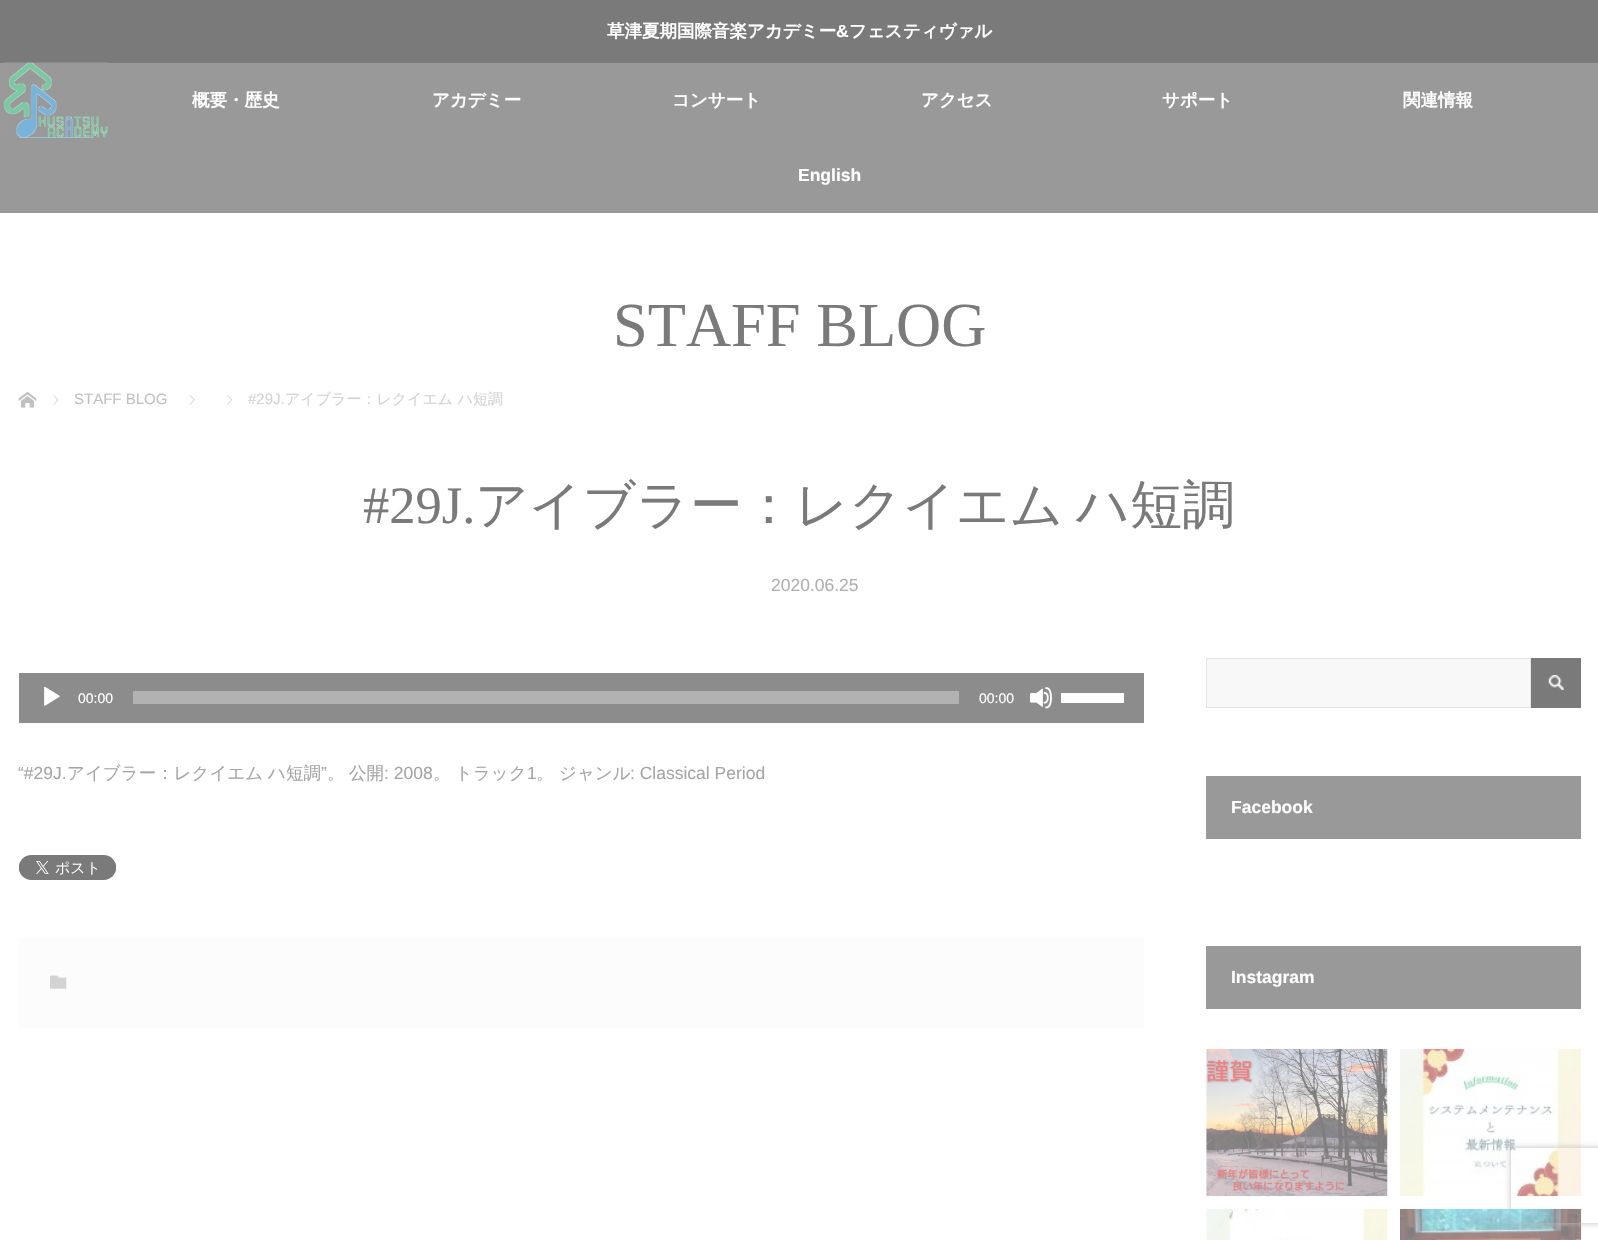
#include "include/core/SkBlurTypes.h"
#include "include/core/SkCanvas.h"
#include "include/core/SkData.h"
#include "include/core/SkFont.h"
#include "include/core/SkFontMgr.h"
#include "include/core/SkImage.h"
#include "include/core/SkMaskFilter.h"
#include "include/core/SkPaint.h"
#include "include/core/SkPathBuilder.h"
#include "include/core/SkTextBlob.h"
#include "include/effects/SkDashPathEffect.h"
#include "include/effects/SkGradientShader.h"
#include "include/utils/SkParsePath.h"

extern sk_sp<SkFontMgr> fontMgr;

void draw(SkCanvas* canvas) {
  SkPaint p;
  p.setAntiAlias(true);
  auto spacedText = [&](const char* s, float x, float y, const SkFont& font, const SkPaint& ink, float letter, float word) {
    std::vector<SkGlyphID> glyphs(font.countText(s, strlen(s), SkTextEncoding::kUTF8));
    std::vector<float> xs(glyphs.size());
    font.textToGlyphs(s, strlen(s), SkTextEncoding::kUTF8, glyphs);
    font.getXPos(glyphs, xs, x);
    float extra = 0;
    for (size_t i = 0; i < glyphs.size(); i++) {
      xs[i] += extra;
      extra += letter + word * (glyphs[i] == font.unicharToGlyph(' '));
    }
    canvas->drawTextBlob(SkTextBlob::MakeFromPosHGlyphs(glyphs, xs, y, font), 0, 0, ink);
  };
  canvas->clear(SK_ColorWHITE);
  p.setColor(SkColorSetRGB(122, 122, 122));
  canvas->drawRect(SkRect::MakeLTRB(0, 0, 1598, 63), p);
  p.setColor(SkColorSetRGB(153, 153, 153));
  canvas->drawRect(SkRect::MakeLTRB(0, 63, 1598, 213), p);
  p.setColor(SkColorSetRGB(147, 232, 248));
  canvas->drawRect(SkRect::MakeLTRB(19, 137, 94, 138), p);
  canvas->drawImageRect(SkImages::DeferredFromEncodedData(SkData::MakeFromFileName("images/1.png")), SkRect::MakeLTRB(3, 62, 109, 138), SkSamplingOptions());
  canvas->drawImageRect(SkImages::DeferredFromEncodedData(SkData::MakeFromFileName("images/2.png")), SkRect::MakeLTRB(18, 391, 37, 408), SkSamplingOptions());
  canvas->drawImageRect(SkImages::DeferredFromEncodedData(SkData::MakeFromFileName("images/3.png")), SkRect::MakeLTRB(53, 395, 59, 405), SkSamplingOptions());
  canvas->drawImageRect(SkImages::DeferredFromEncodedData(SkData::MakeFromFileName("images/4.png")), SkRect::MakeLTRB(189, 395, 195, 405), SkSamplingOptions());
  canvas->drawImageRect(SkImages::DeferredFromEncodedData(SkData::MakeFromFileName("images/5.png")), SkRect::MakeLTRB(227, 395, 233, 405), SkSamplingOptions());
  p.setColor(SkColorSetRGB(140, 140, 140));
  canvas->drawRect(SkRect::MakeLTRB(19, 673, 1144, 723), p);
  canvas->drawImageRect(SkImages::DeferredFromEncodedData(SkData::MakeFromFileName("images/6.png")), SkRect::MakeLTRB(44, 686, 60, 706), SkSamplingOptions());
  p.setColor(SkColorSetRGB(178, 178, 178));
  canvas->drawRect(SkRect::MakeLTRB(133, 691, 959, 704), p);
  canvas->drawImageRect(SkImages::DeferredFromEncodedData(SkData::MakeFromFileName("images/7.png")), SkRect::MakeLTRB(1030, 687, 1052, 709), SkSamplingOptions());
  p.setColor(SK_ColorWHITE);
  canvas->drawRect(SkRect::MakeLTRB(1061, 693, 1124, 703), p);
  canvas->drawImageRect(SkImages::DeferredFromEncodedData(SkData::MakeFromFileName("images/8.png")), SkRect::MakeLTRB(19, 855, 117, 880), SkSamplingOptions());
  p.setColor(SkColorSetRGB(252, 252, 252));
  canvas->drawRect(SkRect::MakeLTRB(19, 938, 1144, 1028), p);
  canvas->drawImageRect(SkImages::DeferredFromEncodedData(SkData::MakeFromFileName("images/9.png")), SkRect::MakeLTRB(50, 975, 67, 989), SkSamplingOptions());
  p.setColor(SkColorSetRGB(248, 248, 248));
  canvas->drawRect(SkRect::MakeLTRB(1206.5f, 658.5f, 1530.5f, 707.5f), p);
  p.setStyle(SkPaint::kStroke_Style);
  p.setStrokeWidth(1);
  p.setColor(SkColorSetRGB(228, 228, 228));
  canvas->drawRect(SkRect::MakeLTRB(1206.5f, 658.5f, 1530.5f, 707.5f), p);
  p.setStyle(SkPaint::kFill_Style);
  p.setColor(SkColorSetRGB(122, 122, 122));
  canvas->drawRect(SkRect::MakeLTRB(1531, 658, 1581, 708), p);
  canvas->drawImageRect(SkImages::DeferredFromEncodedData(SkData::MakeFromFileName("images/10.png")), SkRect::MakeLTRB(1548, 675, 1564, 690), SkSamplingOptions());
  p.setColor(SkColorSetRGB(153, 153, 153));
  canvas->drawRect(SkRect::MakeLTRB(1206, 776, 1581, 839), p);
  canvas->drawRect(SkRect::MakeLTRB(1206, 946, 1581, 1009), p);
  canvas->drawImageRect(SkImages::DeferredFromEncodedData(SkData::MakeFromFileName("images/11.png")), SkRect::MakeLTRB(1206, 1048, 1388, 1197), SkSamplingOptions());
  canvas->drawImageRect(SkImages::DeferredFromEncodedData(SkData::MakeFromFileName("images/12.png")), SkRect::MakeLTRB(1400, 1048, 1581, 1197), SkSamplingOptions());
  canvas->drawImageRect(SkImages::DeferredFromEncodedData(SkData::MakeFromFileName("images/13.png")), SkRect::MakeLTRB(1206, 1208, 1388, 1240), SkSamplingOptions());
  canvas->drawImageRect(SkImages::DeferredFromEncodedData(SkData::MakeFromFileName("images/14.png")), SkRect::MakeLTRB(1400, 1208, 1582, 1240), SkSamplingOptions());
  canvas->save();
  canvas->clipPath(SkPathBuilder(SkPathFillType::kEvenOdd).moveTo(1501, 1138).lineTo(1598, 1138).lineTo(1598, 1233).lineTo(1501, 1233).close().moveTo(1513.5f, 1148).lineTo(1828.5f, 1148).cubicTo(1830, 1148, 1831, 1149, 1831, 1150.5f).lineTo(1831, 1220.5f).cubicTo(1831, 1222, 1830, 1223, 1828.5f, 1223).lineTo(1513.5f, 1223).cubicTo(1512, 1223, 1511, 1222, 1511, 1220.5f).lineTo(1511, 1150.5f).cubicTo(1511, 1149, 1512, 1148, 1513.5f, 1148).close().detach(), true);
  p.setColor(SkColorSetRGB(189, 189, 189));
  p.setMaskFilter(SkMaskFilter::MakeBlur(kNormal_SkBlurStyle, 3));
  canvas->drawRoundRect(SkRect::MakeLTRB(1511, 1148, 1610, 1223), 2.5f, 2.5f, p);
  p.setMaskFilter(nullptr);
  canvas->restore();
  SkFont font1(fontMgr->matchFamilyStyle("WenQuanYi Zen Hei", SkFontStyle::Bold()), 17.5f);
  font1.setSubpixel(true);
  p.setColor(SK_ColorWHITE);
  canvas->drawString("草津夏期国際音楽アカデミー", 607, 37, font1, p);
  SkFont font2(fontMgr->matchFamilyStyle("Liberation Sans", SkFontStyle::Bold()), 17.5f);
  font2.setSubpixel(true);
  canvas->drawString("&", 836, 37, font2, p);
  canvas->drawString("フェスティヴァル", 849, 37, font1, p);
  canvas->drawString("概要・歴史", 192, 106, font1, p);
  canvas->drawString("アカデミー", 432, 106, font1, p);
  canvas->drawString("コンサート", 672, 106, font1, p);
  canvas->drawString("アクセス", 921, 106, font1, p);
  canvas->drawString("サポート", 1162, 106, font1, p);
  canvas->drawString("関連情報", 1403, 106, font1, p);
  canvas->drawString("English", 798, 181, font2, p);
  SkFont font3(fontMgr->matchFamilyStyle("Liberation Serif", SkFontStyle::Normal()), 62.5f);
  font3.setSubpixel(true);
  p.setColor(SkColorSetRGB(122, 122, 122));
  canvas->drawString("STAFF BLOG", 613, 346, font3, p);
  SkFont font4(fontMgr->matchFamilyStyle("Liberation Sans", SkFontStyle::Normal()), 15);
  font4.setSubpixel(true);
  p.setColor(SkColorSetRGB(193, 193, 193));
  canvas->drawString("STAFF BLOG", 74, 404, font4, p);
  p.setColor(SkColorSetRGB(211, 211, 211));
  canvas->drawString("#29J.", 248, 404, font4, p);
  SkFont font5(fontMgr->matchFamilyStyle("WenQuanYi Zen Hei", SkFontStyle(500, SkFontStyle::kNormal_Width, SkFontStyle::kUpright_Slant)), 15);
  font5.setSubpixel(true);
  canvas->drawString("アイブラー：レクイエム ハ短調", 285, 404, font5, p);
  SkFont font6(fontMgr->matchFamilyStyle("Liberation Serif", SkFontStyle::Normal()), 52.5f);
  font6.setSubpixel(true);
  p.setColor(SkColorSetRGB(122, 122, 122));
  canvas->drawString("#29J.", 363, 523, font6, p);
  SkFont font7(fontMgr->matchFamilyStyle("WenQuanYi Zen Hei", SkFontStyle(500, SkFontStyle::kNormal_Width, SkFontStyle::kUpright_Slant)), 52.5f);
  font7.setSubpixel(true);
  spacedText("アイブラー：レクイエム ハ短調", 475, 523, font7, p, 0, -3);
  SkFont font8(fontMgr->matchFamilyStyle("Liberation Sans", SkFontStyle::Normal()), 17.5f);
  font8.setSubpixel(true);
  p.setColor(SkColorSetRGB(175, 175, 175));
  canvas->drawString("2020.06.25", 771, 591, font8, p);
  SkFont font9(fontMgr->matchFamilyStyle("Liberation Sans", SkFontStyle::Normal()), 14);
  font9.setSubpixel(true);
  p.setColor(SK_ColorWHITE);
  canvas->drawString("00:00", 78, 703, font9, p);
  canvas->drawString("00:00", 979, 703, font9, p);
  p.setColor(SkColorSetRGB(165, 165, 165));
  canvas->drawString("“#29J.", 18, 779, font8, p);
  SkFont font10(fontMgr->matchFamilyStyle("WenQuanYi Zen Hei", SkFontStyle(500, SkFontStyle::kNormal_Width, SkFontStyle::kUpright_Slant)), 17.5f);
  font10.setSubpixel(true);
  canvas->drawString("アイブラー：レクイエム", 67, 779, font10, p);
  canvas->drawString("ハ短調", 268, 779, font10, p);
  canvas->drawString("”", 321, 779, font8, p);
  canvas->drawString("。", 327, 779, font10, p);
  canvas->drawString("公開", 349, 779, font10, p);
  canvas->drawString(": 2008", 384, 779, font8, p);
  canvas->drawString("。", 433, 779, font10, p);
  canvas->drawString("トラック", 455, 779, font10, p);
  canvas->drawString("1", 527, 779, font8, p);
  canvas->drawString("。", 536, 779, font10, p);
  canvas->drawString("ジャンル", 559, 779, font10, p);
  canvas->drawString(": Classical Period", 630, 779, font8, p);
  p.setColor(SK_ColorWHITE);
  canvas->drawString("Facebook", 1231, 813, font2, p);
  canvas->drawString("Instagram", 1231, 983, font2, p);
}
